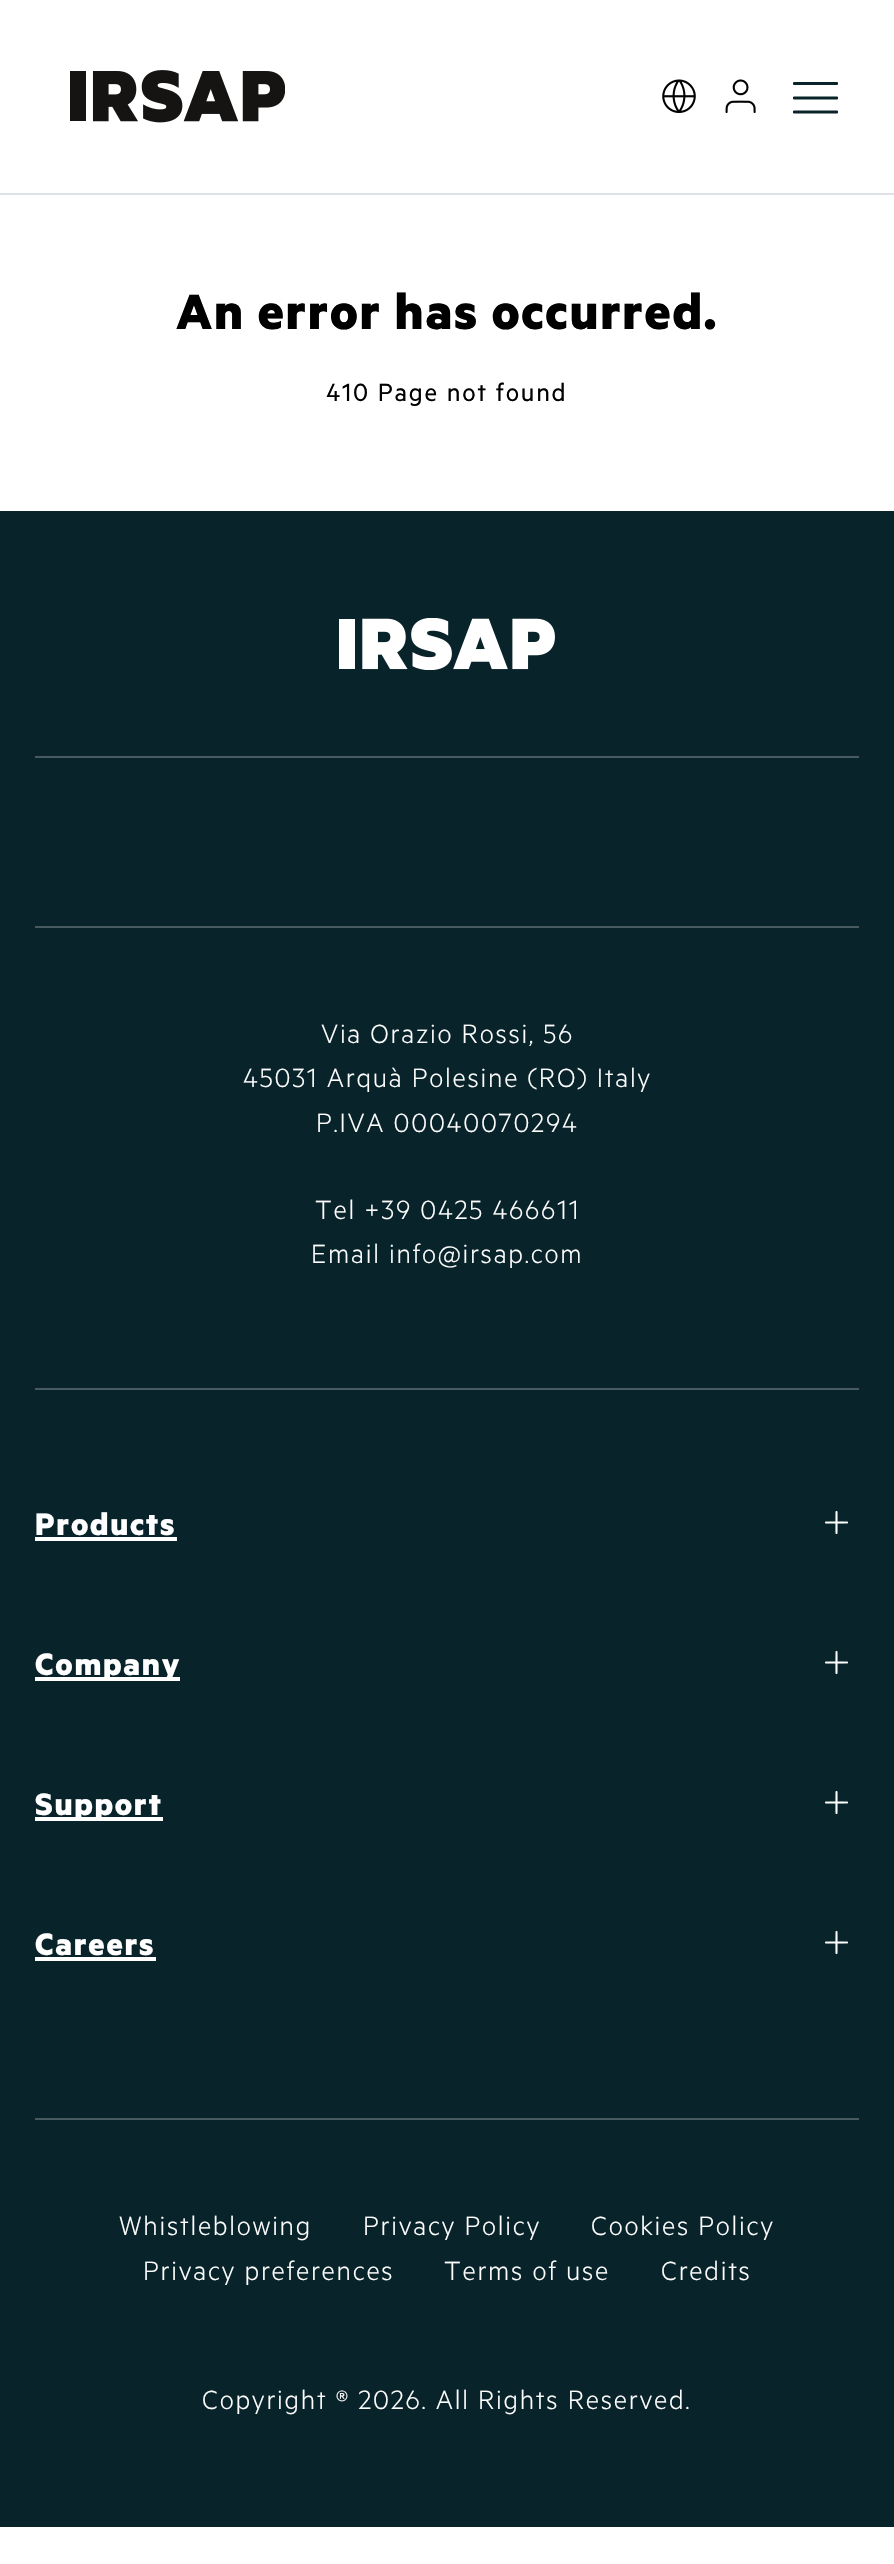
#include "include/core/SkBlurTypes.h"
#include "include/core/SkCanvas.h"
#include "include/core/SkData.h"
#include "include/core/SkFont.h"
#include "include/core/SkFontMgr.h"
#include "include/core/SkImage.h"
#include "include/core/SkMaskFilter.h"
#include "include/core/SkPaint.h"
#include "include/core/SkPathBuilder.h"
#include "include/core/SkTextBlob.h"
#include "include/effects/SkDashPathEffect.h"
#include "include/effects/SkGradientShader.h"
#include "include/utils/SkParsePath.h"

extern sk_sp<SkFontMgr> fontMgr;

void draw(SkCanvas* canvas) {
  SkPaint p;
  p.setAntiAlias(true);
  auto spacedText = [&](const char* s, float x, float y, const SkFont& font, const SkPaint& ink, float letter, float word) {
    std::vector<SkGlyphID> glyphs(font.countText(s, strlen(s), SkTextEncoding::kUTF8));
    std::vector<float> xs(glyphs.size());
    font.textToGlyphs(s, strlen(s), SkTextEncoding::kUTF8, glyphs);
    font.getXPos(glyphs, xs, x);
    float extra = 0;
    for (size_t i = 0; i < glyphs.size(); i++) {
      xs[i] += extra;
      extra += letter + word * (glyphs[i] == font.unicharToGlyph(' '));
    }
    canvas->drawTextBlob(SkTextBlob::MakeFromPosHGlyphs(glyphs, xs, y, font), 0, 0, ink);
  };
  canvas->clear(SK_ColorWHITE);
  p.setColor(SkColorSetRGB(222, 226, 230));
  canvas->drawRect(SkRect::MakeLTRB(0, 193, 894, 195), p);
  canvas->drawImageRect(SkImages::DeferredFromEncodedData(SkData::MakeFromFileName("images/1.png")), SkRect::MakeLTRB(70, 70, 285, 123), SkSamplingOptions());
  canvas->drawImageRect(SkImages::DeferredFromEncodedData(SkData::MakeFromFileName("images/2.png")), SkRect::MakeLTRB(662, 79, 696, 113), SkSamplingOptions());
  canvas->drawImageRect(SkImages::DeferredFromEncodedData(SkData::MakeFromFileName("images/3.png")), SkRect::MakeLTRB(725, 79, 756, 113), SkSamplingOptions());
  canvas->save();
  canvas->clipRect(SkRect::MakeLTRB(793, 82, 838, 114));
  p.setStyle(SkPaint::kStroke_Style);
  p.setStrokeWidth(2.8f);
  p.setStrokeCap(SkPaint::kRound_Cap);
  p.setStrokeJoin(SkPaint::kRound_Join);
  p.setColor(SkColorSetRGB(8, 35, 41));
  canvas->drawPath(SkPathBuilder().moveTo(794, 98).lineTo(837, 98).moveTo(794, 83.5f).lineTo(837, 83.5f).moveTo(794, 112).lineTo(837, 112).detach(), p);
  canvas->restore();
  p.setStyle(SkPaint::kFill_Style);
  canvas->drawRect(SkRect::MakeLTRB(0, 511, 894, 2527), p);
  canvas->drawImageRect(SkImages::DeferredFromEncodedData(SkData::MakeFromFileName("images/4.png")), SkRect::MakeLTRB(339, 618, 555, 670), SkSamplingOptions());
  p.setColor(SkColorSetRGB(70, 90, 95));
  canvas->drawRect(SkRect::MakeLTRB(35, 756, 859, 758), p);
  canvas->drawRect(SkRect::MakeLTRB(35, 926, 859, 928), p);
  canvas->drawRect(SkRect::MakeLTRB(35, 1388, 859, 1390), p);
  p.setColor(SK_ColorWHITE);
  canvas->drawRect(SkRect::MakeLTRB(35, 1537, 177, 1541), p);
  canvas->drawImageRect(SkImages::DeferredFromEncodedData(SkData::MakeFromFileName("images/5.png")), SkRect::MakeLTRB(825, 1511, 848, 1534), SkSamplingOptions());
  canvas->drawRect(SkRect::MakeLTRB(35, 1677, 180, 1681), p);
  canvas->drawImageRect(SkImages::DeferredFromEncodedData(SkData::MakeFromFileName("images/5.png")), SkRect::MakeLTRB(825, 1651, 848, 1674), SkSamplingOptions());
  canvas->drawRect(SkRect::MakeLTRB(35, 1817, 163, 1821), p);
  canvas->drawImageRect(SkImages::DeferredFromEncodedData(SkData::MakeFromFileName("images/5.png")), SkRect::MakeLTRB(825, 1791, 848, 1814), SkSamplingOptions());
  canvas->drawRect(SkRect::MakeLTRB(35, 1957, 156, 1961), p);
  canvas->drawImageRect(SkImages::DeferredFromEncodedData(SkData::MakeFromFileName("images/5.png")), SkRect::MakeLTRB(825, 1931, 848, 1954), SkSamplingOptions());
  p.setColor(SkColorSetRGB(70, 90, 95));
  canvas->drawRect(SkRect::MakeLTRB(35, 2118, 859, 2120), p);
  SkFont font1(fontMgr->matchFamilyStyle("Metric", SkFontStyle::Bold()), 56);
  font1.setSubpixel(true);
  p.setColor(SK_ColorBLACK);
  spacedText("An error has occurred.", 176, 329, font1, p, 1.75f, 0);
  SkFont font2(fontMgr->matchFamilyStyle("Metric", SkFontStyle::Normal()), 28);
  font2.setSubpixel(true);
  spacedText("410 Page not found", 326, 401, font2, p, 1.75f, 0);
  SkFont font3(fontMgr->matchFamilyStyle("Metric", SkFontStyle(300, SkFontStyle::kNormal_Width, SkFontStyle::kUpright_Slant)), 29.75f);
  font3.setSubpixel(true);
  p.setColor(SK_ColorWHITE);
  spacedText("Via Orazio Rossi, 56", 321, 1043, font3, p, 1.75f, 0);
  spacedText("45031 Arquà Polesine (RO) Italy", 243, 1087, font3, p, 1.75f, 0);
  spacedText("P.IVA 00040070294", 316, 1132, font3, p, 1.75f, 0);
  spacedText("Tel +39 0425 466611", 315, 1219, font3, p, 1.75f, 0);
  spacedText("Email info@irsap.com", 311, 1263, font3, p, 1.75f, 0);
  SkFont font4(fontMgr->matchFamilyStyle("Metric", SkFontStyle::Bold()), 35);
  font4.setSubpixel(true);
  spacedText("Products", 35, 1535, font4, p, 1.75f, 0);
  spacedText("Company", 35, 1675, font4, p, 1.75f, 0);
  spacedText("Support", 35, 1815, font4, p, 1.75f, 0);
  spacedText("Careers", 35, 1955, font4, p, 1.75f, 0);
  spacedText("Whistleblowing", 119, 2235, font3, p, 1.75f, 0);
  spacedText("Privacy Policy", 363, 2235, font3, p, 1.75f, 0);
  spacedText("Cookies Policy", 591, 2235, font3, p, 1.75f, 0);
  spacedText("Privacy preferences", 143, 2280, font3, p, 1.75f, 0);
  spacedText("Terms of use", 444, 2280, font3, p, 1.75f, 0);
  spacedText("Credits", 661, 2280, font3, p, 1.75f, 0);
  spacedText("Copyright ® 2026. All Rights Reserved.", 202, 2409, font3, p, 1.75f, 0);
}
